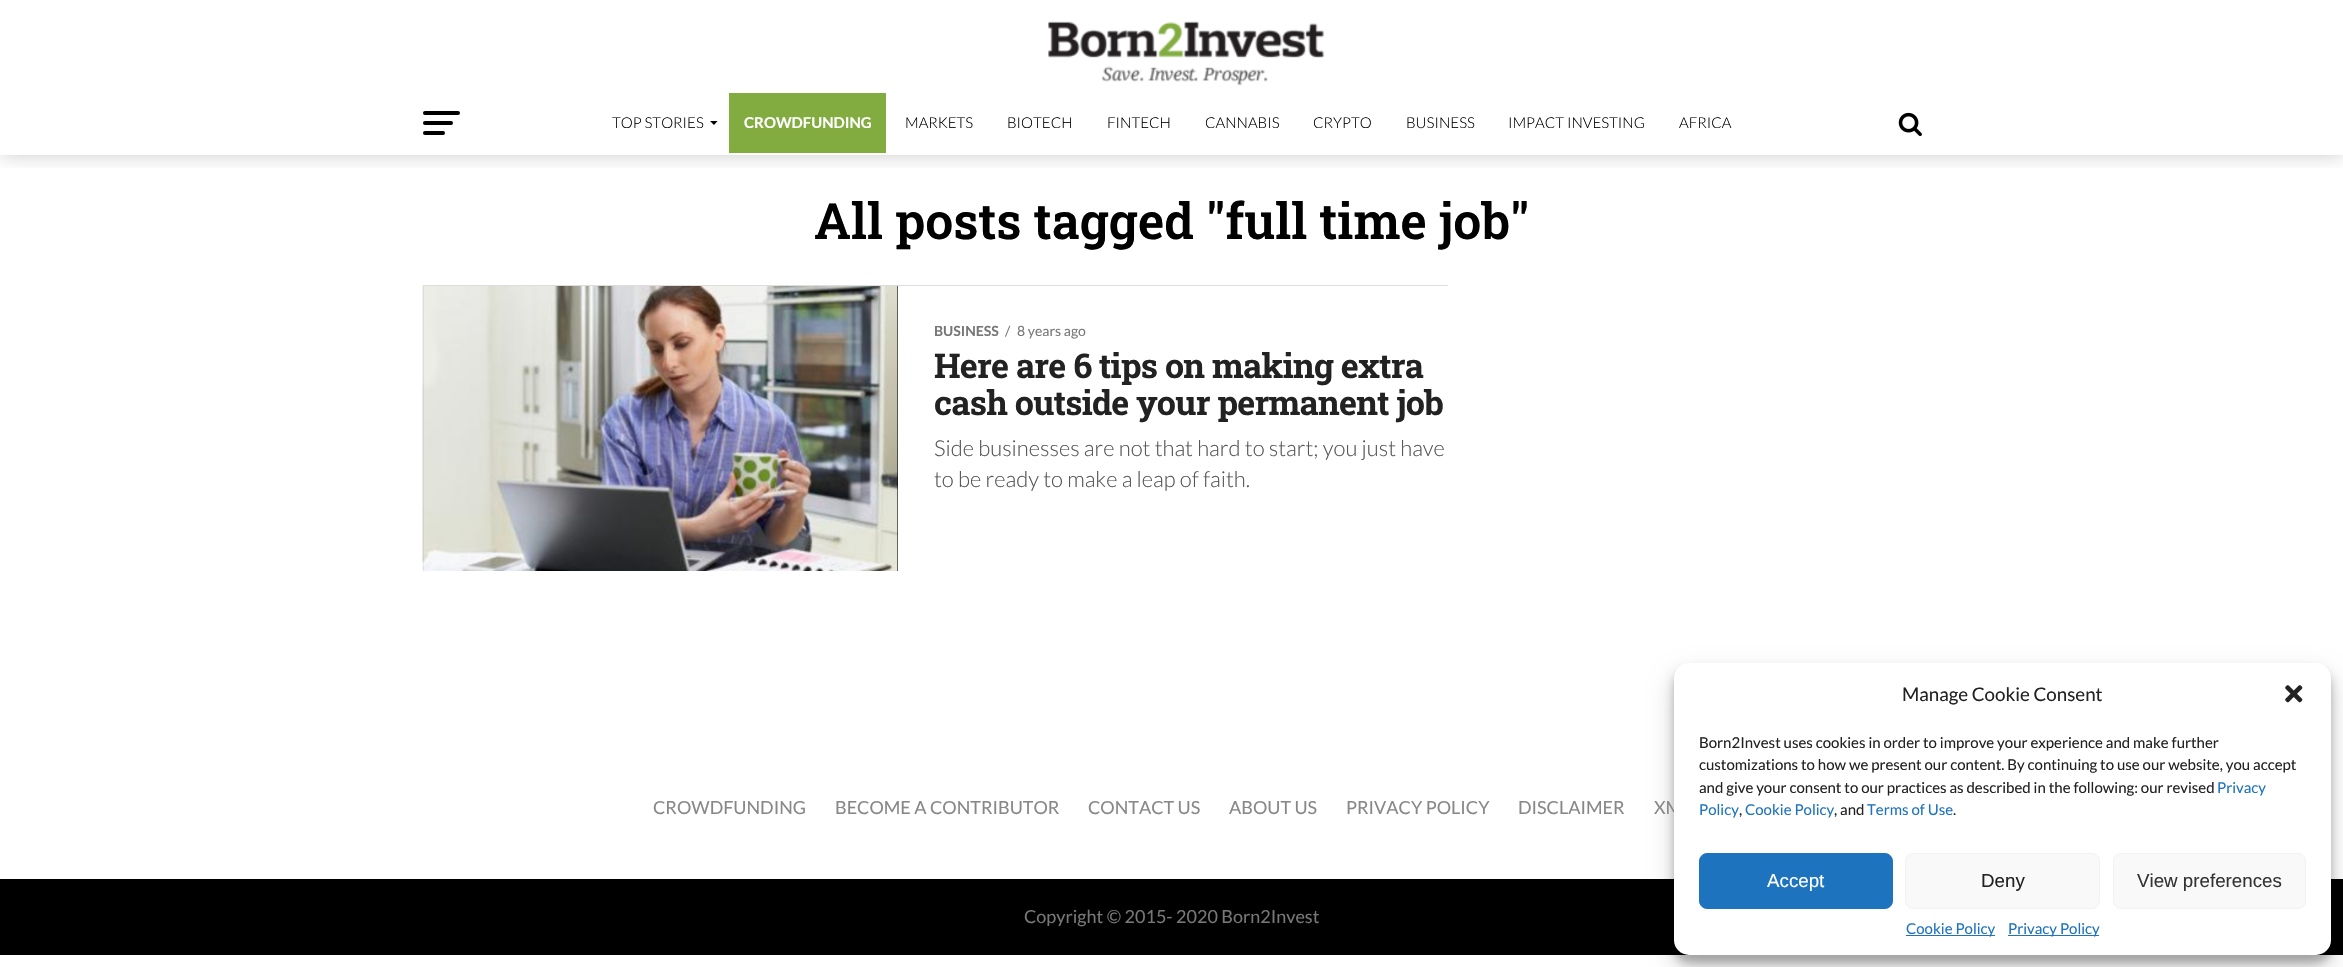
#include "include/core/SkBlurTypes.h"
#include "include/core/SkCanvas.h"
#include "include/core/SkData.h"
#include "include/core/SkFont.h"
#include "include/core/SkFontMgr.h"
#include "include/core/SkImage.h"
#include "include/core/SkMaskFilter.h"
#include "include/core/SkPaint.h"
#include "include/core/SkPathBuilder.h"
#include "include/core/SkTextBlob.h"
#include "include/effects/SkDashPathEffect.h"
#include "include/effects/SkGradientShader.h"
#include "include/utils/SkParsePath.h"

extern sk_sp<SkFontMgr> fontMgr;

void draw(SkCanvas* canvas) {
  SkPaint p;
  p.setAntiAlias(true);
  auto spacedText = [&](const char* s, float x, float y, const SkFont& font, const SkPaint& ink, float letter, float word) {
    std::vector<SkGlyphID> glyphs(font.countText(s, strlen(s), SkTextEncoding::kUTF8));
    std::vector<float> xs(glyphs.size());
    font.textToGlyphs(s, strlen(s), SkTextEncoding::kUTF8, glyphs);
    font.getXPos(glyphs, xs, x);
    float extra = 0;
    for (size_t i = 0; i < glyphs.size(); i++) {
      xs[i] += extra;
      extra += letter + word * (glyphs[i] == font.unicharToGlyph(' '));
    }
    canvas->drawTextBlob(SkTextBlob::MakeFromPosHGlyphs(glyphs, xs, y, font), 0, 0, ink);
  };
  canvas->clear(SK_ColorWHITE);
  canvas->save();
  canvas->clipRect(SkRect::MakeLTRB(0, 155, 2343, 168));
  p.setColor(SkColorSetARGB(51, 0, 0, 0));
  p.setMaskFilter(SkMaskFilter::MakeBlur(kNormal_SkBlurStyle, 10));
  canvas->drawRect(SkRect::MakeLTRB(0, 93, 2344, 155), p);
  p.setMaskFilter(nullptr);
  canvas->restore();
  p.setColor(SK_ColorWHITE);
  canvas->drawRect(SkRect::MakeLTRB(0, 77, 2343, 93), p);
  canvas->drawImageRect(SkImages::DeferredFromEncodedData(SkData::MakeFromFileName("images/1.png")), SkRect::MakeLTRB(1048, 21, 1325, 86), SkSamplingOptions());
  p.setColor(SK_ColorBLACK);
  canvas->drawRoundRect(SkRect::MakeLTRB(423, 111, 460, 115), 2, 2, p);
  canvas->drawRoundRect(SkRect::MakeLTRB(423, 121, 453, 125), 2, 2, p);
  canvas->drawRoundRect(SkRect::MakeLTRB(423, 131, 445, 135), 2, 2, p);
  canvas->drawPath(SkPathBuilder().moveTo(710, 121).lineTo(717.5f, 121).lineTo(714, 125).close().detach(), p);
  p.setColor(SkColorSetRGB(130, 171, 64));
  canvas->drawRect(SkRect::MakeLTRB(729, 93, 886, 153), p);
  canvas->drawImageRect(SkImages::DeferredFromEncodedData(SkData::MakeFromFileName("images/2.png")), SkRect::MakeLTRB(1898, 112, 1922, 137), SkSamplingOptions());
  p.setColor(SkColorSetRGB(221, 221, 221));
  canvas->drawRect(SkRect::MakeLTRB(423, 285, 1448, 286), p);
  p.setColor(SK_ColorBLACK);
  canvas->drawRect(SkRect::MakeLTRB(423, 286, 898, 571), p);
  canvas->drawImageRect(SkImages::DeferredFromEncodedData(SkData::MakeFromFileName("images/3.png")), SkRect::MakeLTRB(422, 286, 898, 571), SkSamplingOptions());
  canvas->drawRect(SkRect::MakeLTRB(0, 879, 2343, 955), p);
  p.setColor(SkColorSetARGB(59, 0, 0, 0));
  p.setMaskFilter(SkMaskFilter::MakeBlur(kNormal_SkBlurStyle, 4));
  canvas->drawRoundRect(SkRect::MakeLTRB(1674, 670, 2331, 963), 15, 15, p);
  p.setMaskFilter(nullptr);
  p.setColor(SkColorSetARGB(48, 0, 0, 0));
  p.setMaskFilter(SkMaskFilter::MakeBlur(kNormal_SkBlurStyle, 12.5f));
  canvas->drawRoundRect(SkRect::MakeLTRB(1674, 675, 2331, 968), 15, 15, p);
  p.setMaskFilter(nullptr);
  SkFont font1(fontMgr->matchFamilyStyle("Lato", SkFontStyle(300, SkFontStyle::kNormal_Width, SkFontStyle::kUpright_Slant)), 15);
  font1.setSubpixel(true);
  p.setColor(SK_ColorBLACK);
  canvas->drawString("TOP STORIES", 612, 128, font1, p);
  SkFont font2(fontMgr->matchFamilyStyle("Lato", SkFontStyle::Bold()), 15);
  font2.setSubpixel(true);
  p.setColor(SK_ColorWHITE);
  canvas->drawString("CROWDFUNDING", 744, 128, font2, p);
  p.setColor(SK_ColorBLACK);
  canvas->drawString("MARKETS", 905, 128, font1, p);
  canvas->drawString("BIOTECH", 1007, 128, font1, p);
  canvas->drawString("FINTECH", 1107, 128, font1, p);
  canvas->drawString("CANNABIS", 1205, 128, font1, p);
  canvas->drawString("CRYPTO", 1313, 128, font1, p);
  canvas->drawString("BUSINESS", 1406, 128, font1, p);
  canvas->drawString("IMPACT INVESTING", 1508, 128, font1, p);
  canvas->drawString("AFRICA", 1679, 128, font1, p);
  SkFont font3(fontMgr->matchFamilyStyle("Roboto Slab", SkFontStyle(600, SkFontStyle::kNormal_Width, SkFontStyle::kUpright_Slant)), 50);
  font3.setSubpixel(true);
  canvas->drawString("All posts tagged \"full time job\"", 814, 239, font3, p);
  SkFont font4(fontMgr->matchFamilyStyle("Lato", SkFontStyle::Bold()), 14);
  font4.setSubpixel(true);
  p.setColor(SkColorSetRGB(119, 119, 119));
  canvas->drawString("BUSINESS", 934, 336, font4, p);
  SkFont font5(fontMgr->matchFamilyStyle("Lato", SkFontStyle::Normal()), 14);
  font5.setSubpixel(true);
  canvas->drawString("/", 1005, 336, font5, p);
  canvas->drawString("8 years ago", 1017, 336, font5, p);
  SkFont font6(fontMgr->matchFamilyStyle("Roboto Slab", SkFontStyle::Bold()), 34);
  font6.setSubpixel(true);
  p.setColor(SkColorSetRGB(34, 34, 34));
  spacedText("Here are 6 tips on making extra", 934, 378, font6, p, -0.7f, 0);
  spacedText("cash outside your permanent job", 934, 415, font6, p, -0.7f, 0);
  SkFont font7(fontMgr->matchFamilyStyle("Lato", SkFontStyle(300, SkFontStyle::kNormal_Width, SkFontStyle::kUpright_Slant)), 22);
  font7.setSubpixel(true);
  p.setColor(SkColorSetRGB(85, 85, 85));
  canvas->drawString("Side businesses are not that hard to start; you just have", 934, 456, font7, p);
  canvas->drawString("to be ready to make a leap of faith.", 934, 487, font7, p);
  SkFont font8(fontMgr->matchFamilyStyle("Lato", SkFontStyle::Normal()), 18);
  font8.setSubpixel(true);
  p.setColor(SkColorSetRGB(136, 136, 136));
  canvas->drawString("CROWDFUNDING", 653, 814, font8, p);
  canvas->drawString("BECOME A CONTRIBUTOR", 835, 814, font8, p);
  canvas->drawString("CONTACT US", 1088, 814, font8, p);
  canvas->drawString("ABOUT US", 1229, 814, font8, p);
  canvas->drawString("PRIVACY POLICY", 1346, 814, font8, p);
  canvas->drawString("DISCLAIMER", 1518, 814, font8, p);
  canvas->drawString("XM", 1654, 814, font8, p);
  p.setColor(SkColorSetRGB(119, 119, 119));
  canvas->drawString("Copyright © 2015- 2020 Born2Invest", 1024, 923, font8, p);
  p.setColor(SK_ColorWHITE);
  canvas->drawRoundRect(SkRect::MakeLTRB(1674, 663, 2331, 955), 15, 15, p);
  SkFont font9(fontMgr->matchFamilyStyle("Lato", SkFontStyle::Normal()), 18.75f);
  font9.setSubpixel(true);
  p.setColor(SkColorSetRGB(34, 34, 34));
  canvas->drawString("Manage Cookie Consent", 1902, 701, font9, p);
  canvas->drawImageRect(SkImages::DeferredFromEncodedData(SkData::MakeFromFileName("images/4.png")), SkRect::MakeLTRB(2285, 685, 2303, 703), SkSamplingOptions());
  SkFont font10(fontMgr->matchFamilyStyle("Lato", SkFontStyle::Normal()), 15);
  font10.setSubpixel(true);
  canvas->drawString("Born2Invest uses cookies in order to improve your experience and make further", 1699, 748, font10, p);
  canvas->drawString("customizations to how we present our content. By continuing to use our website, you accept", 1699, 770, font10, p);
  canvas->drawString("and give your consent to our practices as described in the following: our revised", 1699, 793, font10, p);
  p.setColor(SkColorSetRGB(30, 115, 190));
  canvas->drawString("Privacy", 2217, 793, font10, p);
  canvas->drawString("Policy", 1699, 815, font10, p);
  p.setColor(SkColorSetRGB(34, 34, 34));
  canvas->drawString(",", 1739, 815, font10, p);
  p.setColor(SkColorSetRGB(30, 115, 190));
  canvas->drawString("Cookie Policy", 1745, 815, font10, p);
  p.setColor(SkColorSetRGB(34, 34, 34));
  canvas->drawString(", and", 1834, 815, font10, p);
  p.setColor(SkColorSetRGB(30, 115, 190));
  canvas->drawString("Terms of Use", 1867, 815, font10, p);
  p.setColor(SkColorSetRGB(34, 34, 34));
  canvas->drawString(".", 1953, 815, font10, p);
  p.setColor(SkColorSetRGB(30, 115, 190));
  canvas->drawRoundRect(SkRect::MakeLTRB(1699.5f, 853.5f, 1892.5f, 908.5f), 7.5f, 7.5f, p);
  p.setStyle(SkPaint::kStroke_Style);
  p.setStrokeWidth(1);
  canvas->drawRoundRect(SkRect::MakeLTRB(1699.5f, 853.5f, 1892.5f, 908.5f), 7.5f, 7.5f, p);
  SkFont font11(fontMgr->matchFamilyStyle("Liberation Sans", SkFontStyle::Normal()), 18.75f);
  font11.setSubpixel(true);
  p.setStyle(SkPaint::kFill_Style);
  p.setColor(SK_ColorWHITE);
  canvas->drawString("Accept", 1767, 887, font11, p);
  p.setColor(SkColorSetRGB(249, 249, 249));
  canvas->drawRoundRect(SkRect::MakeLTRB(1905.5f, 853.5f, 2099.5f, 908.5f), 7.5f, 7.5f, p);
  p.setStyle(SkPaint::kStroke_Style);
  p.setColor(SkColorSetRGB(242, 242, 242));
  canvas->drawRoundRect(SkRect::MakeLTRB(1905.5f, 853.5f, 2099.5f, 908.5f), 7.5f, 7.5f, p);
  p.setStyle(SkPaint::kFill_Style);
  p.setColor(SkColorSetRGB(34, 34, 34));
  canvas->drawString("Deny", 1981, 887, font11, p);
  p.setColor(SkColorSetRGB(249, 249, 249));
  canvas->drawRoundRect(SkRect::MakeLTRB(2113.5f, 853.5f, 2305.5f, 908.5f), 7.5f, 7.5f, p);
  p.setStyle(SkPaint::kStroke_Style);
  p.setColor(SkColorSetRGB(242, 242, 242));
  canvas->drawRoundRect(SkRect::MakeLTRB(2113.5f, 853.5f, 2305.5f, 908.5f), 7.5f, 7.5f, p);
  p.setStyle(SkPaint::kFill_Style);
  p.setColor(SkColorSetRGB(51, 51, 51));
  canvas->drawString("View preferences", 2137, 887, font11, p);
  p.setColor(SkColorSetRGB(30, 115, 190));
  canvas->drawRect(SkRect::MakeLTRB(1906, 935, 1995, 936), p);
  canvas->drawString("Cookie Policy", 1906, 934, font10, p);
  canvas->drawRect(SkRect::MakeLTRB(2008, 935, 2099, 936), p);
  canvas->drawString("Privacy Policy", 2008, 934, font10, p);
}
